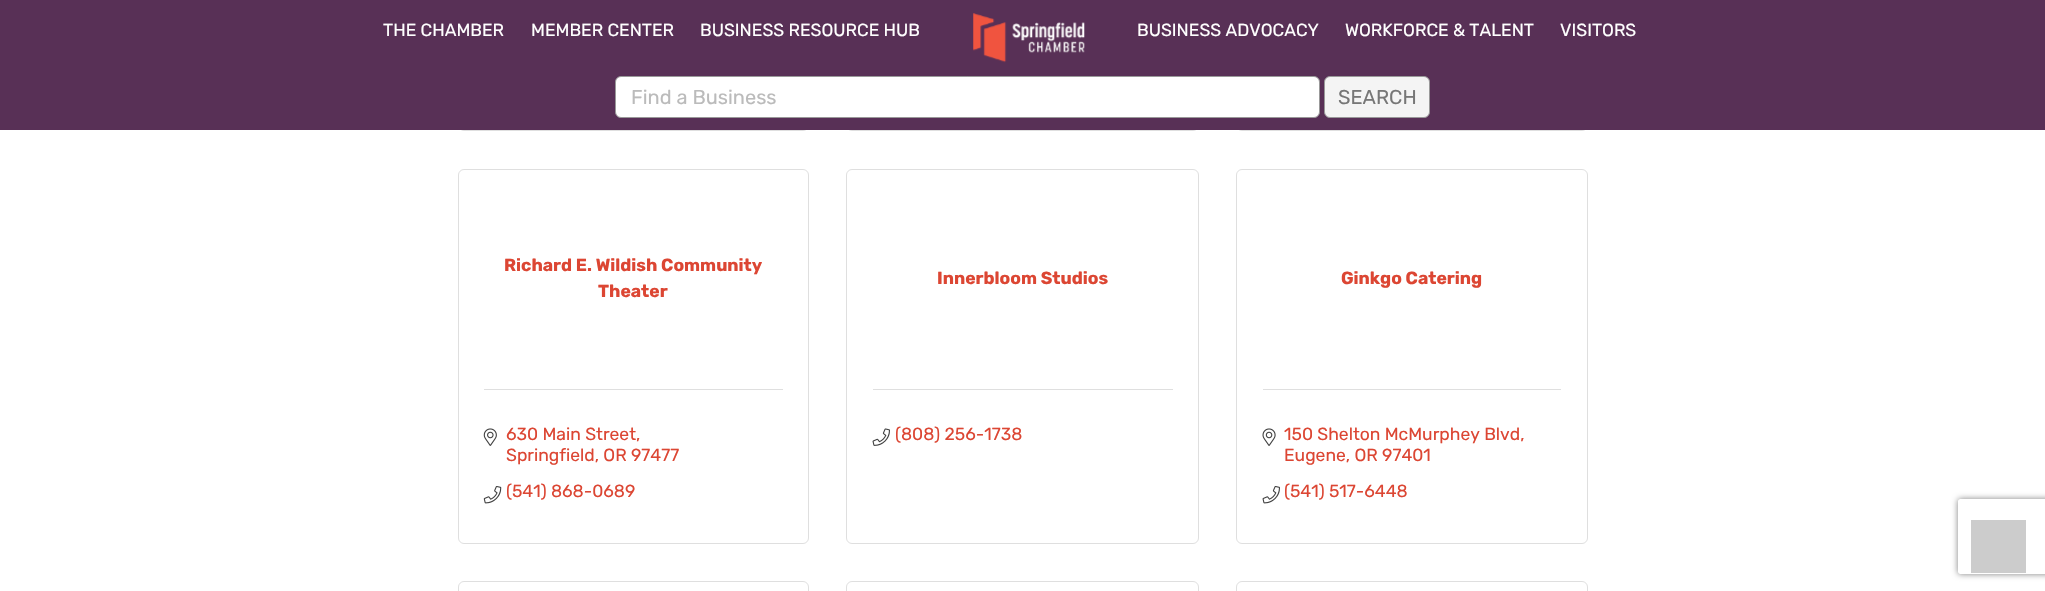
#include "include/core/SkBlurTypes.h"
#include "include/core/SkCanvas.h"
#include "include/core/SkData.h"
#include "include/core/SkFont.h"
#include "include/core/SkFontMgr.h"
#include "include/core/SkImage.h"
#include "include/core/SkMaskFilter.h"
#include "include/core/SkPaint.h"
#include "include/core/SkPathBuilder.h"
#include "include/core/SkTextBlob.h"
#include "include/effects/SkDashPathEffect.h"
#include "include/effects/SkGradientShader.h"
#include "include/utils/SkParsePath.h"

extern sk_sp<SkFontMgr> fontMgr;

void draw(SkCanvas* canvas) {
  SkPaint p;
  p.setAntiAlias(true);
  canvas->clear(SK_ColorWHITE);
  p.setStyle(SkPaint::kStroke_Style);
  p.setStrokeWidth(1);
  p.setColor(SkColorSetRGB(223, 223, 223));
  canvas->drawRoundRect(SkRect::MakeLTRB(458.5f, -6.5f, 808.5f, 130.5f), 5.5f, 5.5f, p);
  canvas->drawRoundRect(SkRect::MakeLTRB(846.5f, -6.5f, 1198.5f, 130.5f), 5.5f, 5.5f, p);
  canvas->drawRoundRect(SkRect::MakeLTRB(1236.5f, -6.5f, 1587.5f, 130.5f), 5.5f, 5.5f, p);
  p.setStyle(SkPaint::kFill_Style);
  p.setColor(SkColorSetRGB(88, 48, 86));
  canvas->drawRect(SkRect::MakeLTRB(0, 0, 2045, 130), p);
  canvas->drawImageRect(SkImages::DeferredFromEncodedData(SkData::MakeFromFileName("images/1.png")), SkRect::MakeLTRB(973, 13, 1085, 63), SkSamplingOptions());
  p.setColor(SK_ColorWHITE);
  canvas->drawRoundRect(SkRect::MakeLTRB(615.5f, 76.5f, 1319.5f, 117.5f), 5.5f, 5.5f, p);
  p.setStyle(SkPaint::kStroke_Style);
  p.setColor(SkColorSetRGB(153, 153, 153));
  canvas->drawRoundRect(SkRect::MakeLTRB(615.5f, 76.5f, 1319.5f, 117.5f), 5.5f, 5.5f, p);
  p.setStyle(SkPaint::kFill_Style);
  p.setColor(SkColorSetRGB(244, 244, 244));
  canvas->drawRoundRect(SkRect::MakeLTRB(1324.5f, 76.5f, 1429.5f, 117.5f), 5.5f, 5.5f, p);
  p.setStyle(SkPaint::kStroke_Style);
  p.setColor(SkColorSetRGB(153, 153, 153));
  canvas->drawRoundRect(SkRect::MakeLTRB(1324.5f, 76.5f, 1429.5f, 117.5f), 5.5f, 5.5f, p);
  p.setColor(SkColorSetRGB(223, 223, 223));
  canvas->drawRoundRect(SkRect::MakeLTRB(458.5f, 169.5f, 808.5f, 543.5f), 5.5f, 5.5f, p);
  p.setStyle(SkPaint::kFill_Style);
  canvas->drawRect(SkRect::MakeLTRB(484, 389, 783, 390), p);
  canvas->drawImageRect(SkImages::DeferredFromEncodedData(SkData::MakeFromFileName("images/2.png")), SkRect::MakeLTRB(483, 428, 497, 446), SkSamplingOptions());
  canvas->drawImageRect(SkImages::DeferredFromEncodedData(SkData::MakeFromFileName("images/3.png")), SkRect::MakeLTRB(483, 486, 502, 504), SkSamplingOptions());
  p.setStyle(SkPaint::kStroke_Style);
  canvas->drawRoundRect(SkRect::MakeLTRB(846.5f, 169.5f, 1198.5f, 543.5f), 5.5f, 5.5f, p);
  p.setStyle(SkPaint::kFill_Style);
  canvas->drawRect(SkRect::MakeLTRB(873, 389, 1173, 390), p);
  canvas->drawImageRect(SkImages::DeferredFromEncodedData(SkData::MakeFromFileName("images/4.png")), SkRect::MakeLTRB(872, 428, 890, 446), SkSamplingOptions());
  p.setStyle(SkPaint::kStroke_Style);
  canvas->drawRoundRect(SkRect::MakeLTRB(1236.5f, 169.5f, 1587.5f, 543.5f), 5.5f, 5.5f, p);
  p.setStyle(SkPaint::kFill_Style);
  canvas->drawRect(SkRect::MakeLTRB(1263, 389, 1561, 390), p);
  canvas->drawImageRect(SkImages::DeferredFromEncodedData(SkData::MakeFromFileName("images/5.png")), SkRect::MakeLTRB(1262, 428, 1276, 446), SkSamplingOptions());
  canvas->drawImageRect(SkImages::DeferredFromEncodedData(SkData::MakeFromFileName("images/6.png")), SkRect::MakeLTRB(1262, 486, 1280, 504), SkSamplingOptions());
  p.setStyle(SkPaint::kStroke_Style);
  canvas->drawRoundRect(SkRect::MakeLTRB(458.5f, 581.5f, 808.5f, 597.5f), 5.5f, 5.5f, p);
  canvas->drawRoundRect(SkRect::MakeLTRB(846.5f, 581.5f, 1198.5f, 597.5f), 5.5f, 5.5f, p);
  canvas->drawRoundRect(SkRect::MakeLTRB(1236.5f, 581.5f, 1587.5f, 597.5f), 5.5f, 5.5f, p);
  canvas->save();
  canvas->clipPath(SkPathBuilder(SkPathFillType::kEvenOdd).moveTo(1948, 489).lineTo(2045, 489).lineTo(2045, 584).lineTo(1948, 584).close().moveTo(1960.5f, 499).lineTo(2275.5f, 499).cubicTo(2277, 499, 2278, 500, 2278, 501.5f).lineTo(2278, 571.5f).cubicTo(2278, 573, 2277, 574, 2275.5f, 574).lineTo(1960.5f, 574).cubicTo(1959, 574, 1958, 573, 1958, 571.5f).lineTo(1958, 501.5f).cubicTo(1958, 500, 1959, 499, 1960.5f, 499).close().detach(), true);
  p.setStyle(SkPaint::kFill_Style);
  p.setColor(SkColorSetRGB(128, 128, 128));
  p.setMaskFilter(SkMaskFilter::MakeBlur(kNormal_SkBlurStyle, 3));
  canvas->drawRoundRect(SkRect::MakeLTRB(1958, 499, 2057, 574), 2.5f, 2.5f, p);
  p.setMaskFilter(nullptr);
  canvas->restore();
  p.setColor(SkColorSetRGB(204, 204, 204));
  canvas->drawRect(SkRect::MakeLTRB(1971, 520, 2026, 573), p);
  SkFont font1(fontMgr->matchFamilyStyle("Rubik", SkFontStyle::Normal()), 17.5f);
  font1.setSubpixel(true);
  p.setColor(SK_ColorWHITE);
  canvas->drawString("THE CHAMBER", 383, 36, font1, p);
  canvas->drawString("MEMBER CENTER", 531, 36, font1, p);
  canvas->drawString("BUSINESS RESOURCE HUB", 700, 36, font1, p);
  canvas->drawString("BUSINESS ADVOCACY", 1137, 36, font1, p);
  canvas->drawString("WORKFORCE & TALENT", 1345, 36, font1, p);
  canvas->drawString("VISITORS", 1560, 36, font1, p);
  SkFont font2(fontMgr->matchFamilyStyle("Rubik", SkFontStyle::Normal()), 20);
  font2.setSubpixel(true);
  p.setColor(SkColorSetRGB(187, 187, 187));
  canvas->drawString("Find a Business", 631, 104, font2, p);
  p.setColor(SkColorSetRGB(119, 119, 119));
  canvas->drawString("SEARCH", 1338, 104, font2, p);
  SkFont font3(fontMgr->matchFamilyStyle("Rubik", SkFontStyle::Bold()), 17.5f);
  font3.setSubpixel(true);
  p.setColor(SkColorSetRGB(220, 70, 51));
  canvas->drawString("Richard E. Wildish Community", 504, 271, font3, p);
  canvas->drawString("Theater", 598, 297, font3, p);
  canvas->drawString("630 Main Street,", 506, 440, font1, p);
  canvas->drawString("Springfield, OR 97477", 506, 461, font1, p);
  canvas->drawString("(541) 868-0689", 506, 497, font1, p);
  canvas->drawString("Innerbloom Studios", 937, 284, font3, p);
  canvas->drawString("(808) 256-1738", 895, 440, font1, p);
  canvas->drawString("Ginkgo Catering", 1341, 284, font3, p);
  canvas->drawString("150 Shelton McMurphey Blvd,", 1284, 440, font1, p);
  canvas->drawString("Eugene, OR 97401", 1284, 461, font1, p);
  canvas->drawString("(541) 517-6448", 1284, 497, font1, p);
}
